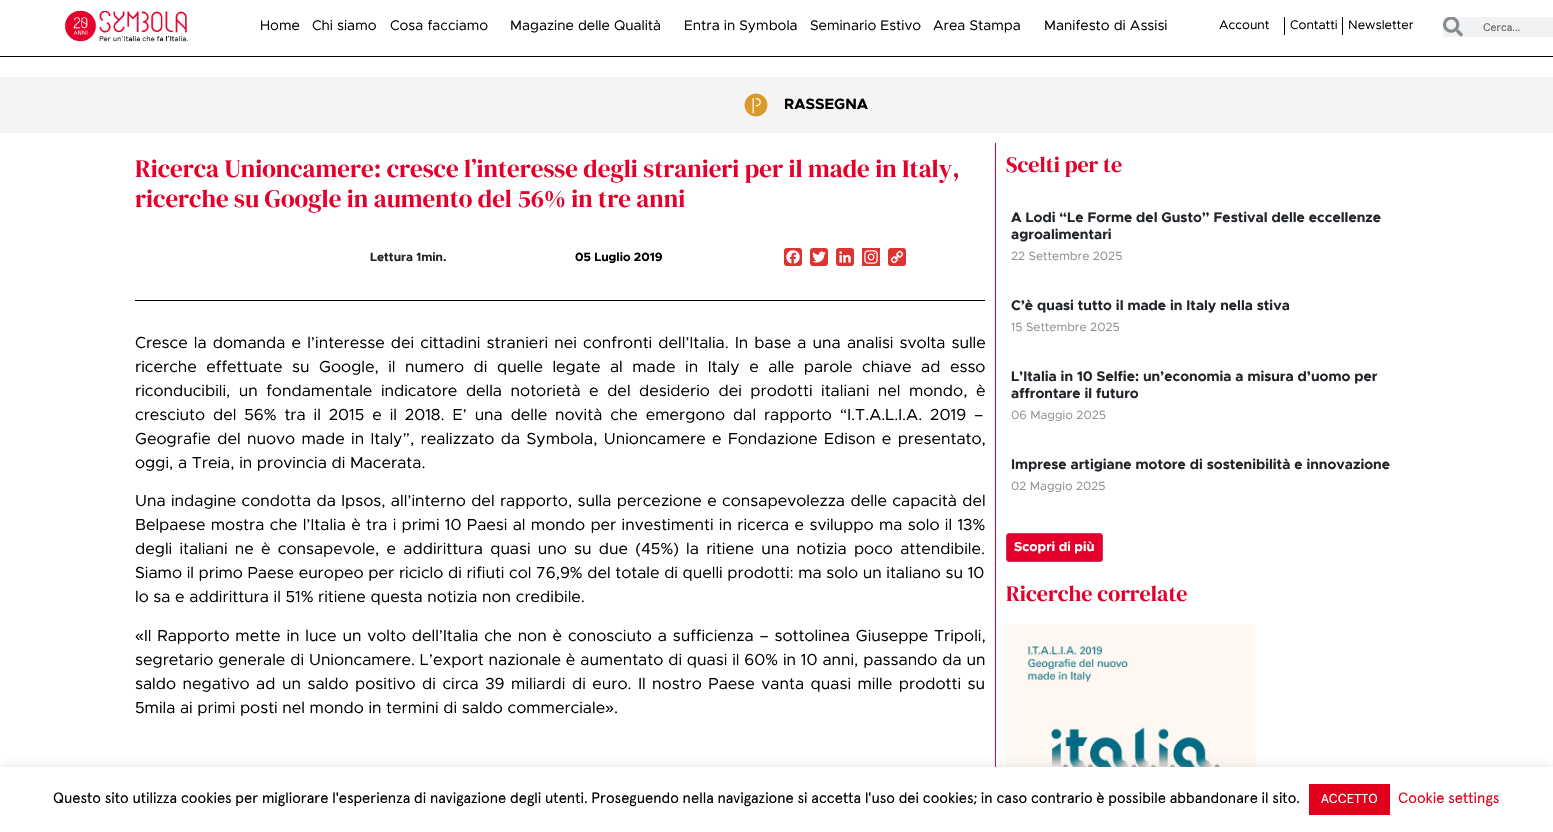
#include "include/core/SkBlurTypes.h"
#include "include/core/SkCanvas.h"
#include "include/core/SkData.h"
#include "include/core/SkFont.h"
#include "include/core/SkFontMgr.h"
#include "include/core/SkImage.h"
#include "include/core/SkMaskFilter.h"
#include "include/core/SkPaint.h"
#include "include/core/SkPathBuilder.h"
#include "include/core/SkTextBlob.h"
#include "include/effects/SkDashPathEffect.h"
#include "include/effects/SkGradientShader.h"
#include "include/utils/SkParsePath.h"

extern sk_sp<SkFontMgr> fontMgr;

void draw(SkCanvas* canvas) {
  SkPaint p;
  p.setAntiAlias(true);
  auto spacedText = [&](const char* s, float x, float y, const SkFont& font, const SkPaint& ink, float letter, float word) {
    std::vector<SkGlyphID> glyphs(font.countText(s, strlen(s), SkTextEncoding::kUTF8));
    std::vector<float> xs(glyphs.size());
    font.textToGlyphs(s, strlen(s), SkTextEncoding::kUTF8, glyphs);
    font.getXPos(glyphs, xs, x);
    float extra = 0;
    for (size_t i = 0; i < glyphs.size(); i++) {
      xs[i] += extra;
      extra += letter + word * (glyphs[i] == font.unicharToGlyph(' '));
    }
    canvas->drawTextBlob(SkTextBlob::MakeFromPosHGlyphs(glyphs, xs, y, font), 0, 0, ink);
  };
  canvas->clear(SK_ColorWHITE);
  p.setColor(SK_ColorBLACK);
  canvas->drawRect(SkRect::MakeLTRB(0, 56, 1553, 57), p);
  canvas->drawImageRect(SkImages::DeferredFromEncodedData(SkData::MakeFromFileName("images/1.png")), SkRect::MakeLTRB(64, 10, 189, 42), SkSamplingOptions());
  canvas->drawRect(SkRect::MakeLTRB(1284, 17, 1285, 35), p);
  canvas->drawRect(SkRect::MakeLTRB(1342, 17, 1343, 35), p);
  p.setColor(SkColorSetRGB(241, 242, 243));
  canvas->drawRect(SkRect::MakeLTRB(1443, 17, 1553, 37), p);
  canvas->drawImageRect(SkImages::DeferredFromEncodedData(SkData::MakeFromFileName("images/2.png")), SkRect::MakeLTRB(1443, 17, 1463, 37), SkSamplingOptions());
  p.setColor(SkColorSetRGB(244, 244, 244));
  canvas->drawRect(SkRect::MakeLTRB(0, 77, 1553, 133), p);
  canvas->drawImageRect(SkImages::DeferredFromEncodedData(SkData::MakeFromFileName("images/3.png")), SkRect::MakeLTRB(744, 93, 768, 117), SkSamplingOptions());
  p.setColor(SkColorSetRGB(228, 0, 43));
  canvas->drawRect(SkRect::MakeLTRB(995, 143, 996, 767), p);
  p.setColor(SkColorSetRGB(221, 51, 51));
  canvas->drawRoundRect(SkRect::MakeLTRB(784, 248, 802, 266), 3, 3, p);
  canvas->drawImageRect(SkImages::DeferredFromEncodedData(SkData::MakeFromFileName("images/4.png")), SkRect::MakeLTRB(786, 250, 800, 264), SkSamplingOptions());
  canvas->drawRoundRect(SkRect::MakeLTRB(810, 248, 828, 266), 3, 3, p);
  canvas->drawImageRect(SkImages::DeferredFromEncodedData(SkData::MakeFromFileName("images/5.png")), SkRect::MakeLTRB(812, 251, 826, 263), SkSamplingOptions());
  canvas->drawRoundRect(SkRect::MakeLTRB(836, 248, 854, 266), 3, 3, p);
  canvas->drawImageRect(SkImages::DeferredFromEncodedData(SkData::MakeFromFileName("images/6.png")), SkRect::MakeLTRB(839, 251, 851, 263), SkSamplingOptions());
  canvas->drawRect(SkRect::MakeLTRB(862, 248, 880, 266), p);
  canvas->drawImageRect(SkImages::DeferredFromEncodedData(SkData::MakeFromFileName("images/7.png")), SkRect::MakeLTRB(864, 250, 878, 264), SkSamplingOptions());
  canvas->drawRoundRect(SkRect::MakeLTRB(888, 248, 906, 266), 3, 3, p);
  canvas->drawImageRect(SkImages::DeferredFromEncodedData(SkData::MakeFromFileName("images/8.png")), SkRect::MakeLTRB(890, 250, 904, 264), SkSamplingOptions());
  p.setColor(SK_ColorBLACK);
  canvas->drawRect(SkRect::MakeLTRB(135, 300, 985, 301), p);
  p.setColor(SkColorSetRGB(228, 0, 43));
  canvas->drawRoundRect(SkRect::MakeLTRB(1006.5f, 533.5f, 1102.5f, 561.5f), 2.5f, 2.5f, p);
  p.setStyle(SkPaint::kStroke_Style);
  p.setStrokeWidth(1);
  p.setColor(SkColorSetRGB(204, 51, 102));
  canvas->drawRoundRect(SkRect::MakeLTRB(1006.5f, 533.5f, 1102.5f, 561.5f), 2.5f, 2.5f, p);
  canvas->drawImageRect(SkImages::DeferredFromEncodedData(SkData::MakeFromFileName("images/9.png")), SkRect::MakeLTRB(1006, 624, 1256, 767), SkSamplingOptions());
  p.setStyle(SkPaint::kFill_Style);
  p.setColor(SkColorSetARGB(77, 172, 171, 171));
  p.setMaskFilter(SkMaskFilter::MakeBlur(kNormal_SkBlurStyle, 5));
  canvas->drawRect(SkRect::MakeLTRB(0, 766, 1553, 831), p);
  p.setMaskFilter(nullptr);
  p.setColor(SK_ColorWHITE);
  canvas->drawRect(SkRect::MakeLTRB(0, 767, 1553, 832), p);
  p.setColor(SkColorSetRGB(226, 0, 29));
  canvas->drawRect(SkRect::MakeLTRB(1309, 784, 1390, 815), p);
  SkFont font1(fontMgr->matchFamilyStyle("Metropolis", SkFontStyle::Normal()), 14);
  font1.setSubpixel(true);
  p.setColor(SK_ColorBLACK);
  canvas->drawString("Home", 260, 30, font1, p);
  canvas->drawString("Chi siamo", 312, 30, font1, p);
  canvas->drawString("Cosa facciamo", 390, 30, font1, p);
  canvas->drawString("Magazine delle Qualità", 510, 30, font1, p);
  canvas->drawString("Entra in Symbola", 684, 30, font1, p);
  canvas->drawString("Seminario Estivo", 810, 30, font1, p);
  canvas->drawString("Area Stampa", 933, 30, font1, p);
  canvas->drawString("Manifesto di Assisi", 1044, 30, font1, p);
  SkFont font2(fontMgr->matchFamilyStyle("Metropolis", SkFontStyle::Normal()), 12.5f);
  font2.setSubpixel(true);
  canvas->drawString("Account", 1219, 29, font2, p);
  canvas->drawString("Contatti", 1290, 29, font2, p);
  canvas->drawString("Newsletter", 1348, 29, font2, p);
  SkFont font3(fontMgr->matchFamilyStyle("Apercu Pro", SkFontStyle::Normal()), 11);
  font3.setSubpixel(true);
  p.setColor(SkColorSetRGB(96, 97, 97));
  canvas->drawString("Cerca...", 1483, 31, font3, p);
  SkFont font4(fontMgr->matchFamilyStyle("Metropolis", SkFontStyle::Bold()), 15);
  font4.setSubpixel(true);
  p.setColor(SK_ColorBLACK);
  canvas->drawString("RASSEGNA", 784, 109, font4, p);
  SkFont font5(fontMgr->matchFamilyStyle("DM Serif Display", SkFontStyle::Normal()), 25);
  font5.setSubpixel(true);
  p.setColor(SkColorSetRGB(228, 0, 43));
  canvas->drawString("Ricerca Unioncamere: cresce l’interesse degli stranieri per il made in Italy,", 135, 177, font5, p);
  canvas->drawString("ricerche su Google in aumento del 56% in tre anni", 135, 207, font5, p);
  SkFont font6(fontMgr->matchFamilyStyle("Metropolis", SkFontStyle::Bold()), 12);
  font6.setSubpixel(true);
  p.setColor(SkColorSetRGB(33, 37, 41));
  canvas->drawString("Lettura 1min.", 370, 261, font6, p);
  p.setColor(SK_ColorBLACK);
  canvas->drawString("05 Luglio 2019", 575, 261, font6, p);
  SkFont font7(fontMgr->matchFamilyStyle("Metropolis", SkFontStyle::Normal()), 16);
  font7.setSubpixel(true);
  spacedText("Cresce la domanda e l’interesse dei cittadini stranieri nei confronti dell’Italia. In base a una analisi svolta sulle", 135, 348, font7, p, 0, 1.5f);
  spacedText("ricerche effettuate su Google, il numero di quelle legate al made in Italy e alle parole chiave ad esso", 135, 372, font7, p, 0, 4.9f);
  spacedText("riconducibili, un fondamentale indicatore della notorietà e del desiderio dei prodotti italiani nel mondo, è", 135, 396, font7, p, 0, 3.9f);
  spacedText("cresciuto del 56% tra il 2015 e il 2018. E’ una delle novità che emergono dal rapporto “I.T.A.L.I.A. 2019 –", 135, 420, font7, p, 0, 3.25f);
  spacedText("Geografie del nuovo made in Italy”, realizzato da Symbola, Unioncamere e Fondazione Edison e presentato,", 135, 444, font7, p, 0, 1.75f);
  canvas->drawString("oggi, a Treia, in provincia di Macerata.", 135, 468, font7, p);
  spacedText("Una indagine condotta da Ipsos, all’interno del rapporto, sulla percezione e consapevolezza delle capacità del", 135, 506, font7, p, 0, 0.75f);
  spacedText("Belpaese mostra che l’Italia è tra i primi 10 Paesi al mondo per investimenti in ricerca e sviluppo ma solo il 13%", 135, 530, font7, p, 0, 0.7f);
  spacedText("degli italiani ne è consapevole, e addirittura quasi uno su due (45%) la ritiene una notizia poco attendibile.", 135, 554, font7, p, 0, 2.6f);
  canvas->drawString("Siamo il primo Paese europeo per riciclo di rifiuti col 76,9% del totale di quelli prodotti: ma solo un italiano su 10", 135, 578, font7, p);
  canvas->drawString("lo sa e addirittura il 51% ritiene questa notizia non credibile.", 135, 602, font7, p);
  SkFont font8(fontMgr->matchFamilyStyle("Liberation Sans", SkFontStyle::Normal()), 16);
  font8.setSubpixel(true);
  canvas->drawString("«", 135, 641, font8, p);
  spacedText("Il Rapporto mette in luce un volto dell’Italia che non è conosciuto a sufficienza – sottolinea Giuseppe Tripoli,", 144, 641, font7, p, 0, 1.2f);
  spacedText("segretario generale di Unioncamere. L’export nazionale è aumentato di quasi il 60% in 10 anni, passando da un", 135, 665, font7, p, 0, 0.25f);
  spacedText("saldo negativo ad un saldo positivo di circa 39 miliardi di euro. Il nostro Paese vanta quasi mille prodotti su", 135, 689, font7, p, 0, 1.9f);
  canvas->drawString("5mila ai primi posti nel mondo in termini di saldo commerciale", 135, 713, font7, p);
  canvas->drawString("»", 605, 713, font8, p);
  canvas->drawString(".", 614, 713, font7, p);
  SkFont font9(fontMgr->matchFamilyStyle("DM Serif Display", SkFontStyle::Normal()), 22);
  font9.setSubpixel(true);
  p.setColor(SkColorSetRGB(228, 0, 43));
  canvas->drawString("Scelti per te", 1006, 172, font9, p);
  SkFont font10(fontMgr->matchFamilyStyle("Metropolis", SkFontStyle::Bold()), 14);
  font10.setSubpixel(true);
  p.setColor(SkColorSetRGB(33, 37, 41));
  canvas->drawString("A Lodi “Le Forme del Gusto” Festival delle eccellenze", 1011, 222, font10, p);
  canvas->drawString("agroalimentari", 1011, 239, font10, p);
  SkFont font11(fontMgr->matchFamilyStyle("Metropolis", SkFontStyle::Normal()), 12);
  font11.setSubpixel(true);
  p.setColor(SkColorSetRGB(144, 144, 144));
  canvas->drawString("22 Settembre 2025", 1011, 260, font11, p);
  p.setColor(SkColorSetRGB(33, 37, 41));
  canvas->drawString("C’è quasi tutto il made in Italy nella stiva", 1011, 310, font10, p);
  p.setColor(SkColorSetRGB(144, 144, 144));
  canvas->drawString("15 Settembre 2025", 1011, 331, font11, p);
  p.setColor(SkColorSetRGB(33, 37, 41));
  canvas->drawString("L’Italia in 10 Selfie: un’economia a misura d’uomo per", 1011, 381, font10, p);
  canvas->drawString("affrontare il futuro", 1011, 398, font10, p);
  p.setColor(SkColorSetRGB(144, 144, 144));
  canvas->drawString("06 Maggio 2025", 1011, 419, font11, p);
  p.setColor(SkColorSetRGB(33, 37, 41));
  canvas->drawString("Imprese artigiane motore di sostenibilità e innovazione", 1011, 469, font10, p);
  p.setColor(SkColorSetRGB(144, 144, 144));
  canvas->drawString("02 Maggio 2025", 1011, 490, font11, p);
  SkFont font12(fontMgr->matchFamilyStyle("Metropolis", SkFontStyle::Bold()), 13);
  font12.setSubpixel(true);
  p.setColor(SK_ColorWHITE);
  canvas->drawString("Scopri di più", 1014, 551, font12, p);
  p.setColor(SkColorSetRGB(228, 0, 43));
  canvas->drawString("Ricerche correlate", 1006, 601, font9, p);
  SkFont font13(fontMgr->matchFamilyStyle("Apercu Pro", SkFontStyle::Normal()), 15);
  font13.setSubpixel(true);
  p.setColor(SK_ColorBLACK);
  canvas->drawString("Questo sito utilizza cookies per migliorare l'esperienza di navigazione degli utenti. Proseguendo nella navigazione si accetta l'uso dei cookies; in caso contrario è possibile abbandonare il sito.", 53, 803, font13, p);
  SkFont font14(fontMgr->matchFamilyStyle("Apercu Pro", SkFontStyle::Normal()), 13);
  font14.setSubpixel(true);
  p.setColor(SK_ColorWHITE);
  canvas->drawString("ACCETTO", 1321, 803, font14, p);
  p.setColor(SkColorSetRGB(226, 0, 29));
  canvas->drawString("Cookie settings", 1398, 803, font13, p);
}
